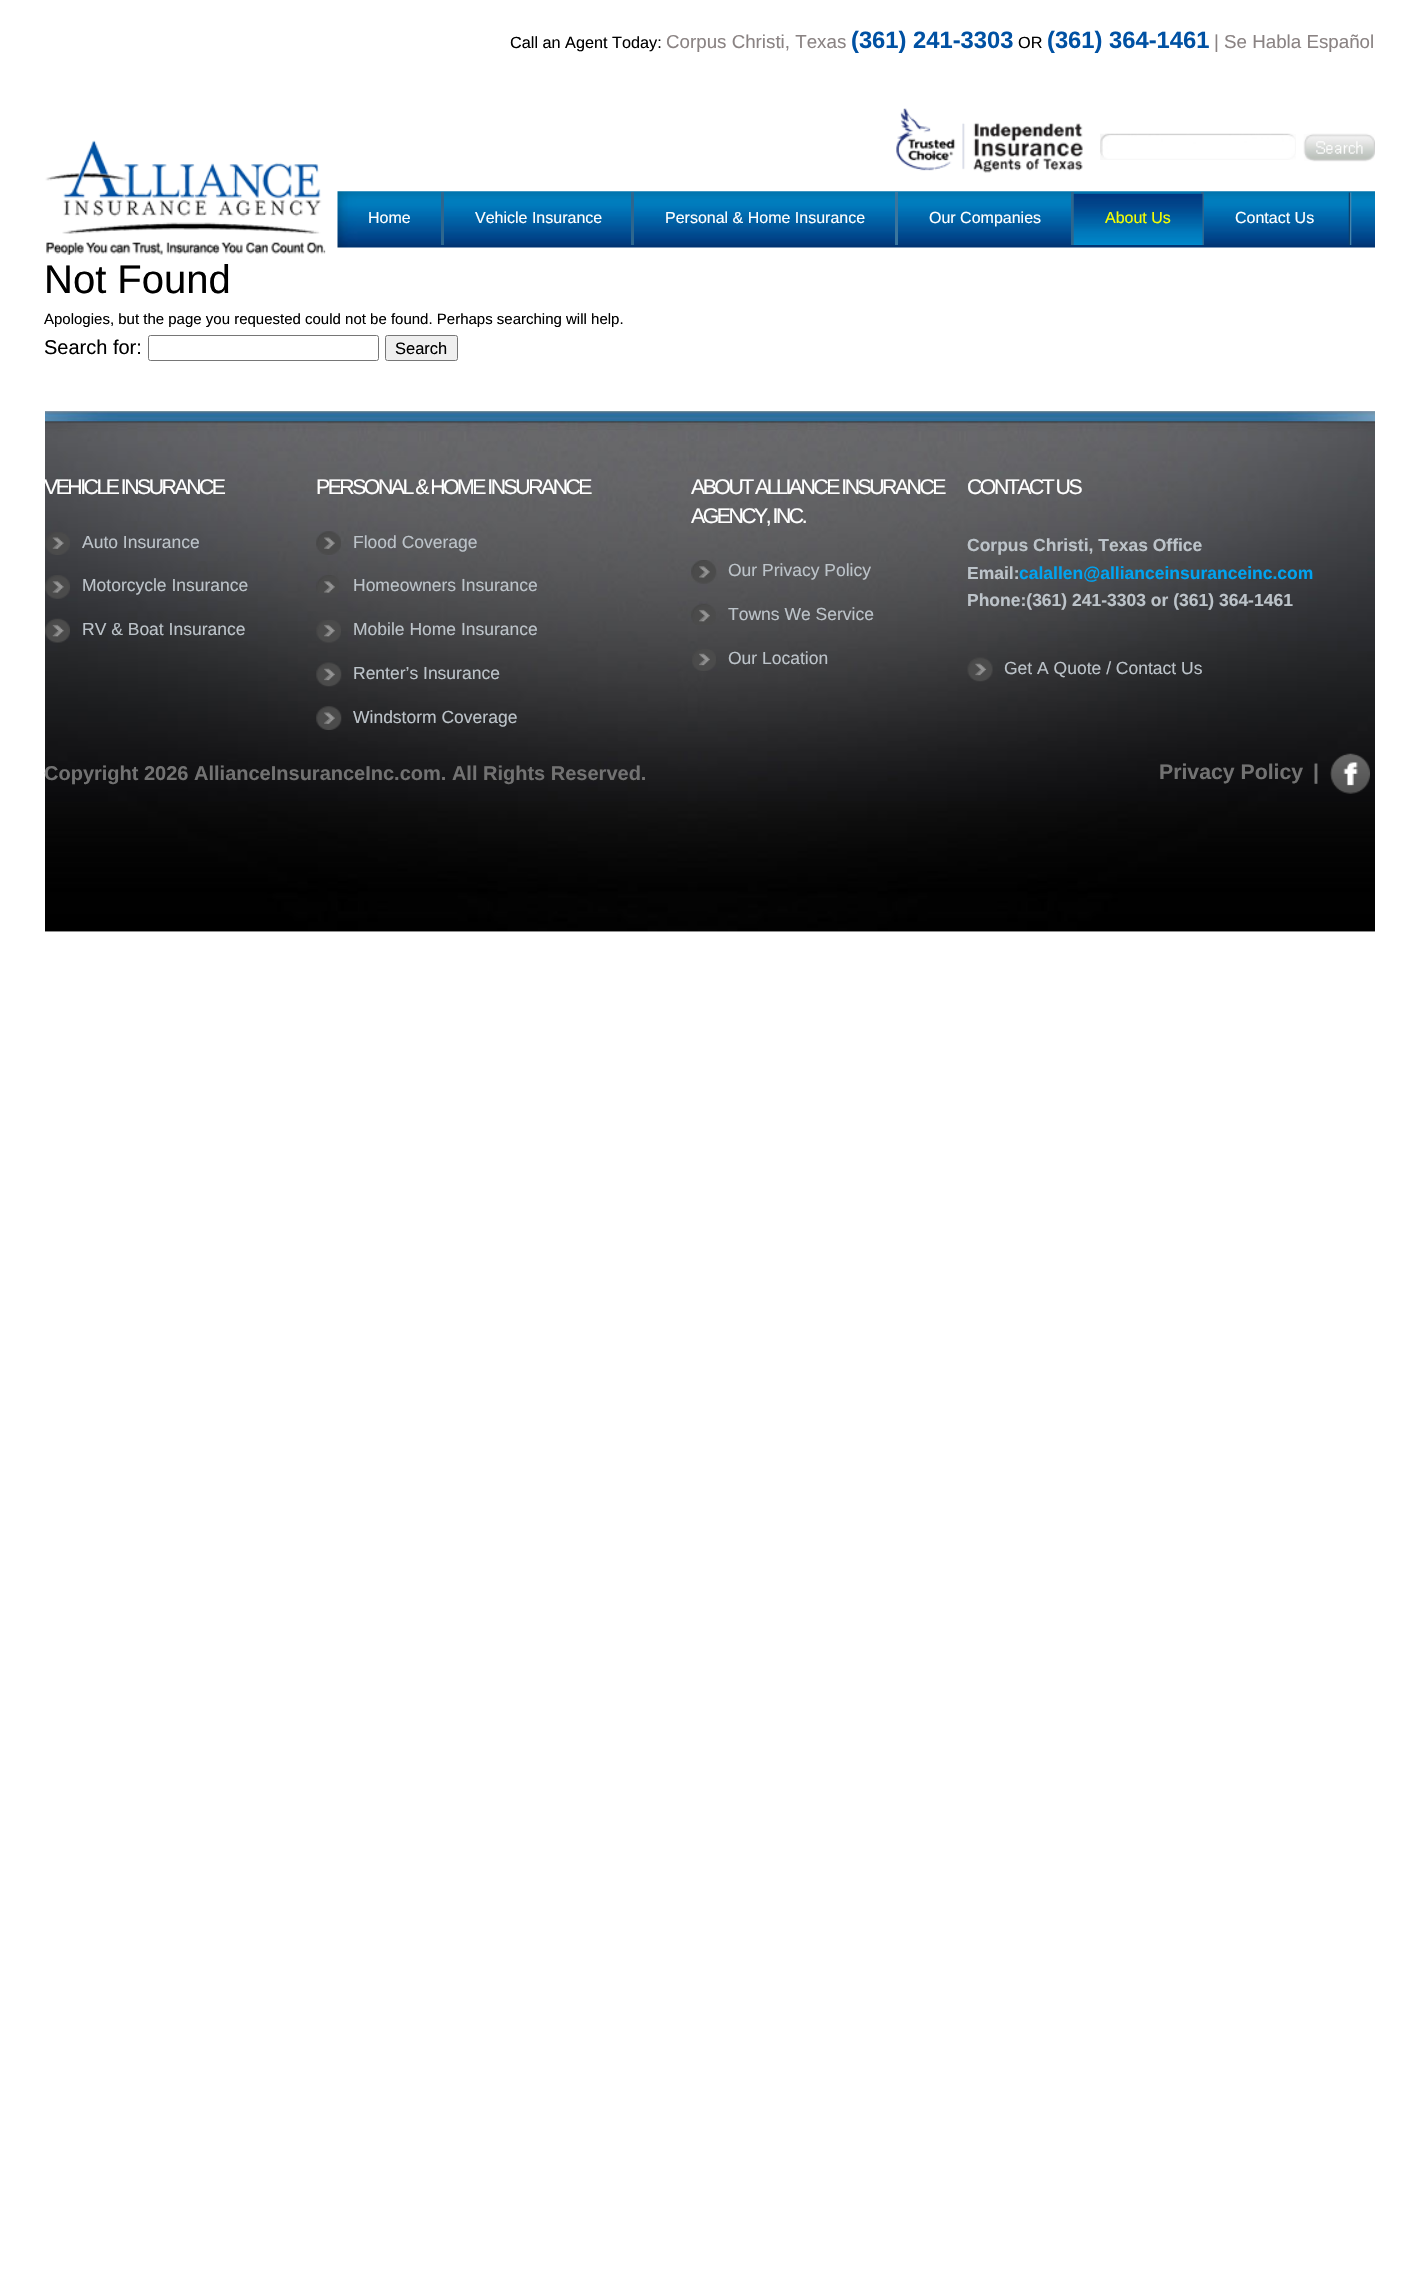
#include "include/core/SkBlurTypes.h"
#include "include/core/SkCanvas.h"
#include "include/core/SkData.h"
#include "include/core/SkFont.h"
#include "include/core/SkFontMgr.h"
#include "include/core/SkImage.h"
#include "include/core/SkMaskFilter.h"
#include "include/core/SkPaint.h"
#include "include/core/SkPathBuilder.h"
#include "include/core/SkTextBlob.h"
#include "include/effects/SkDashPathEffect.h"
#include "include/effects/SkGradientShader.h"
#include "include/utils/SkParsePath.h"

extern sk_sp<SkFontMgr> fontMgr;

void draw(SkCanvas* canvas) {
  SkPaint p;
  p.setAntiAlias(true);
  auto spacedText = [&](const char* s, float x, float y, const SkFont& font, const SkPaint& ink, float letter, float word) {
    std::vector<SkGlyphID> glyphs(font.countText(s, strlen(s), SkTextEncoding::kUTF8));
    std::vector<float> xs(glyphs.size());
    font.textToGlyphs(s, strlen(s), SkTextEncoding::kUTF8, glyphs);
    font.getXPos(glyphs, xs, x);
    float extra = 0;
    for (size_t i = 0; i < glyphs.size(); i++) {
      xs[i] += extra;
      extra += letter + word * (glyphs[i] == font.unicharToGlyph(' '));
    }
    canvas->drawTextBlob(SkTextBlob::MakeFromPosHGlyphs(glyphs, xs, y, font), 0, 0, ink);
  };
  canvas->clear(SK_ColorWHITE);
  canvas->drawImageRect(SkImages::DeferredFromEncodedData(SkData::MakeFromFileName("images/1.png")), SkRect::MakeLTRB(45, 140, 326, 255), SkSamplingOptions());
  canvas->drawImageRect(SkImages::DeferredFromEncodedData(SkData::MakeFromFileName("images/2.png")), SkRect::MakeLTRB(896, 108, 1083, 173), SkSamplingOptions());
  canvas->drawImageRect(SkImages::DeferredFromEncodedData(SkData::MakeFromFileName("images/3.png")), SkRect::MakeLTRB(1100, 133, 1296, 160), SkSamplingOptions());
  canvas->drawImageRect(SkImages::DeferredFromEncodedData(SkData::MakeFromFileName("images/4.png")), SkRect::MakeLTRB(1303, 133, 1375, 162), SkSamplingOptions());
  canvas->drawImageRect(SkImages::DeferredFromEncodedData(SkData::MakeFromFileName("images/5.png")), SkRect::MakeLTRB(337, 191, 1375, 248), SkSamplingOptions());
  p.setColor(SkColorSetRGB(45, 102, 142));
  canvas->drawRect(SkRect::MakeLTRB(441, 192, 444, 245), p);
  canvas->drawRect(SkRect::MakeLTRB(631, 192, 634, 245), p);
  p.setColor(SkColorSetRGB(58, 117, 157));
  canvas->drawRect(SkRect::MakeLTRB(895, 192, 898, 245), p);
  p.setColor(SkColorSetRGB(45, 102, 142));
  canvas->drawRect(SkRect::MakeLTRB(1071, 192, 1074, 245), p);
  canvas->drawRect(SkRect::MakeLTRB(1201, 192, 1204, 245), p);
  canvas->drawImageRect(SkImages::DeferredFromEncodedData(SkData::MakeFromFileName("images/6.png")), SkRect::MakeLTRB(1073, 193, 1203, 245), SkSamplingOptions());
  canvas->drawImageRect(SkImages::DeferredFromEncodedData(SkData::MakeFromFileName("images/7.png")), SkRect::MakeLTRB(1348, 192, 1352, 245), SkSamplingOptions());
  p.setStyle(SkPaint::kStroke_Style);
  p.setStrokeWidth(1);
  p.setColor(SkColorSetRGB(118, 118, 118));
  canvas->drawRoundRect(SkRect::MakeLTRB(148.5f, 335.5f, 378.5f, 360.5f), 2, 2, p);
  p.setStyle(SkPaint::kFill_Style);
  p.setColor(SkColorSetRGB(239, 239, 239));
  canvas->drawRoundRect(SkRect::MakeLTRB(385.5f, 335.5f, 457.5f, 360.5f), 2, 2, p);
  p.setStyle(SkPaint::kStroke_Style);
  p.setColor(SkColorSetRGB(118, 118, 118));
  canvas->drawRoundRect(SkRect::MakeLTRB(385.5f, 335.5f, 457.5f, 360.5f), 2, 2, p);
  canvas->drawImageRect(SkImages::DeferredFromEncodedData(SkData::MakeFromFileName("images/8.png")), SkRect::MakeLTRB(45, 411, 1375, 932), SkSamplingOptions());
  canvas->drawImageRect(SkImages::DeferredFromEncodedData(SkData::MakeFromFileName("images/9.png")), SkRect::MakeLTRB(45, 411, 1375, 932), SkSamplingOptions());
  canvas->drawImageRect(SkImages::DeferredFromEncodedData(SkData::MakeFromFileName("images/10.png")), SkRect::MakeLTRB(45, 532, 70, 555), SkSamplingOptions());
  canvas->drawImageRect(SkImages::DeferredFromEncodedData(SkData::MakeFromFileName("images/11.png")), SkRect::MakeLTRB(45, 575, 70, 599), SkSamplingOptions());
  canvas->drawImageRect(SkImages::DeferredFromEncodedData(SkData::MakeFromFileName("images/12.png")), SkRect::MakeLTRB(45, 618, 70, 643), SkSamplingOptions());
  canvas->drawImageRect(SkImages::DeferredFromEncodedData(SkData::MakeFromFileName("images/13.png")), SkRect::MakeLTRB(316, 531, 341, 555), SkSamplingOptions());
  canvas->drawImageRect(SkImages::DeferredFromEncodedData(SkData::MakeFromFileName("images/14.png")), SkRect::MakeLTRB(316, 575, 339, 593), SkSamplingOptions());
  canvas->drawImageRect(SkImages::DeferredFromEncodedData(SkData::MakeFromFileName("images/15.png")), SkRect::MakeLTRB(316, 620, 341, 643), SkSamplingOptions());
  canvas->drawImageRect(SkImages::DeferredFromEncodedData(SkData::MakeFromFileName("images/16.png")), SkRect::MakeLTRB(316, 662, 342, 687), SkSamplingOptions());
  canvas->drawImageRect(SkImages::DeferredFromEncodedData(SkData::MakeFromFileName("images/17.png")), SkRect::MakeLTRB(316, 706, 342, 730), SkSamplingOptions());
  canvas->drawImageRect(SkImages::DeferredFromEncodedData(SkData::MakeFromFileName("images/18.png")), SkRect::MakeLTRB(691, 560, 717, 584), SkSamplingOptions());
  canvas->drawImageRect(SkImages::DeferredFromEncodedData(SkData::MakeFromFileName("images/19.png")), SkRect::MakeLTRB(691, 603, 716, 625), SkSamplingOptions());
  canvas->drawImageRect(SkImages::DeferredFromEncodedData(SkData::MakeFromFileName("images/20.png")), SkRect::MakeLTRB(692, 649, 716, 671), SkSamplingOptions());
  canvas->drawImageRect(SkImages::DeferredFromEncodedData(SkData::MakeFromFileName("images/21.png")), SkRect::MakeLTRB(967, 657, 993, 682), SkSamplingOptions());
  canvas->drawImageRect(SkImages::DeferredFromEncodedData(SkData::MakeFromFileName("images/22.png")), SkRect::MakeLTRB(1330, 753, 1370, 794), SkSamplingOptions());
  SkFont font1(fontMgr->matchFamilyStyle("Liberation Sans", SkFontStyle::Normal()), 16.25f);
  font1.setSubpixel(true);
  p.setStyle(SkPaint::kFill_Style);
  p.setColor(SK_ColorBLACK);
  canvas->drawString("Call an Agent Today:", 510, 48, font1, p);
  SkFont font2(fontMgr->matchFamilyStyle("Liberation Sans", SkFontStyle::Normal()), 18.75f);
  font2.setSubpixel(true);
  p.setColor(SkColorSetRGB(138, 131, 131));
  canvas->drawString("Corpus Christi, Texas", 666, 48, font2, p);
  SkFont font3(fontMgr->matchFamilyStyle("Liberation Sans", SkFontStyle::Bold()), 23.75f);
  font3.setSubpixel(true);
  p.setColor(SkColorSetRGB(0, 81, 163));
  canvas->drawString("(361) 241-3303", 851, 48, font3, p);
  p.setColor(SK_ColorBLACK);
  canvas->drawString("OR", 1018, 48, font1, p);
  p.setColor(SkColorSetRGB(0, 81, 163));
  canvas->drawString("(361) 364-1461", 1047, 48, font3, p);
  p.setColor(SkColorSetRGB(138, 131, 131));
  canvas->drawString("| Se Habla Español", 1214, 48, font2, p);
  SkFont font4(fontMgr->matchFamilyStyle("Liberation Sans", SkFontStyle::Normal()), 16);
  font4.setSubpixel(true);
  p.setColor(SK_ColorWHITE);
  canvas->drawString("Home", 368, 223, font4, p);
  canvas->drawString("Vehicle Insurance", 475, 223, font4, p);
  canvas->drawString("Personal & Home Insurance", 665, 223, font4, p);
  canvas->drawString("Our Companies", 929, 223, font4, p);
  p.setColor(SkColorSetRGB(246, 255, 1));
  canvas->drawString("About Us", 1105, 223, font4, p);
  p.setColor(SK_ColorWHITE);
  canvas->drawString("Contact Us", 1235, 223, font4, p);
  SkFont font5(fontMgr->matchFamilyStyle("Liberation Sans", SkFontStyle::Normal()), 40);
  font5.setSubpixel(true);
  p.setColor(SK_ColorBLACK);
  canvas->drawString("Not Found", 44, 293, font5, p);
  SkFont font6(fontMgr->matchFamilyStyle("Liberation Sans", SkFontStyle::Normal()), 15);
  font6.setSubpixel(true);
  canvas->drawString("Apologies, but the page you requested could not be found. Perhaps searching will help.", 44, 324, font6, p);
  SkFont font7(fontMgr->matchFamilyStyle("Liberation Sans", SkFontStyle::Normal()), 20);
  font7.setSubpixel(true);
  canvas->drawString("Search for:", 44, 354, font7, p);
  SkFont font8(fontMgr->matchFamilyStyle("Liberation Sans", SkFontStyle::Normal()), 16.5f);
  font8.setSubpixel(true);
  canvas->drawString("Search", 395, 354, font8, p);
  SkFont font9(fontMgr->matchFamilyStyle("Liberation Sans", SkFontStyle::Normal()), 21.25f);
  font9.setSubpixel(true);
  p.setColor(SK_ColorWHITE);
  spacedText("VEHICLE INSURANCE", 44, 494, font9, p, -2.5f, 0);
  SkFont font10(fontMgr->matchFamilyStyle("Liberation Sans", SkFontStyle::Normal()), 17.5f);
  font10.setSubpixel(true);
  p.setColor(SkColorSetRGB(188, 195, 201));
  canvas->drawString("Auto Insurance", 82, 548, font10, p);
  canvas->drawString("Motorcycle Insurance", 82, 591, font10, p);
  canvas->drawString("RV & Boat Insurance", 82, 635, font10, p);
  p.setColor(SK_ColorWHITE);
  spacedText("PERSONAL & HOME INSURANCE", 316, 494, font9, p, -2.5f, 0);
  p.setColor(SkColorSetRGB(188, 195, 201));
  canvas->drawString("Flood Coverage", 353, 548, font10, p);
  canvas->drawString("Homeowners Insurance", 353, 591, font10, p);
  canvas->drawString("Mobile Home Insurance", 353, 635, font10, p);
  canvas->drawString("Renter’s Insurance", 353, 679, font10, p);
  canvas->drawString("Windstorm Coverage", 353, 723, font10, p);
  p.setColor(SK_ColorWHITE);
  spacedText("ABOUT ALLIANCE INSURANCE", 691, 494, font9, p, -2.5f, 0);
  spacedText("AGENCY, INC.", 691, 523, font9, p, -2.5f, 0);
  p.setColor(SkColorSetRGB(188, 195, 201));
  canvas->drawString("Our Privacy Policy", 728, 576, font10, p);
  canvas->drawString("Towns We Service", 728, 620, font10, p);
  canvas->drawString("Our Location", 728, 664, font10, p);
  p.setColor(SK_ColorWHITE);
  spacedText("CONTACT US", 967, 494, font9, p, -2.5f, 0);
  SkFont font11(fontMgr->matchFamilyStyle("Liberation Sans", SkFontStyle::Bold()), 17.5f);
  font11.setSubpixel(true);
  p.setColor(SkColorSetRGB(188, 195, 201));
  canvas->drawString("Corpus Christi, Texas Office", 967, 551, font11, p);
  canvas->drawString("Email:", 967, 579, font11, p);
  p.setColor(SkColorSetRGB(0, 163, 240));
  canvas->drawString("calallen@allianceinsuranceinc.com", 1019, 579, font11, p);
  p.setColor(SkColorSetRGB(188, 195, 201));
  canvas->drawString("Phone:(361) 241-3303 or (361) 364-1461", 967, 606, font11, p);
  canvas->drawString("Get A Quote / Contact Us", 1004, 674, font10, p);
  SkFont font12(fontMgr->matchFamilyStyle("Liberation Sans", SkFontStyle::Bold()), 20);
  font12.setSubpixel(true);
  p.setColor(SkColorSetRGB(114, 114, 114));
  canvas->drawString("Copyright 2026 AllianceInsuranceInc.com. All Rights Reserved.", 44, 780, font12, p);
  SkFont font13(fontMgr->matchFamilyStyle("Liberation Sans", SkFontStyle::Bold()), 21.25f);
  font13.setSubpixel(true);
  canvas->drawString("Privacy Policy", 1159, 779, font13, p);
  canvas->drawString("|", 1313, 779, font13, p);
}
